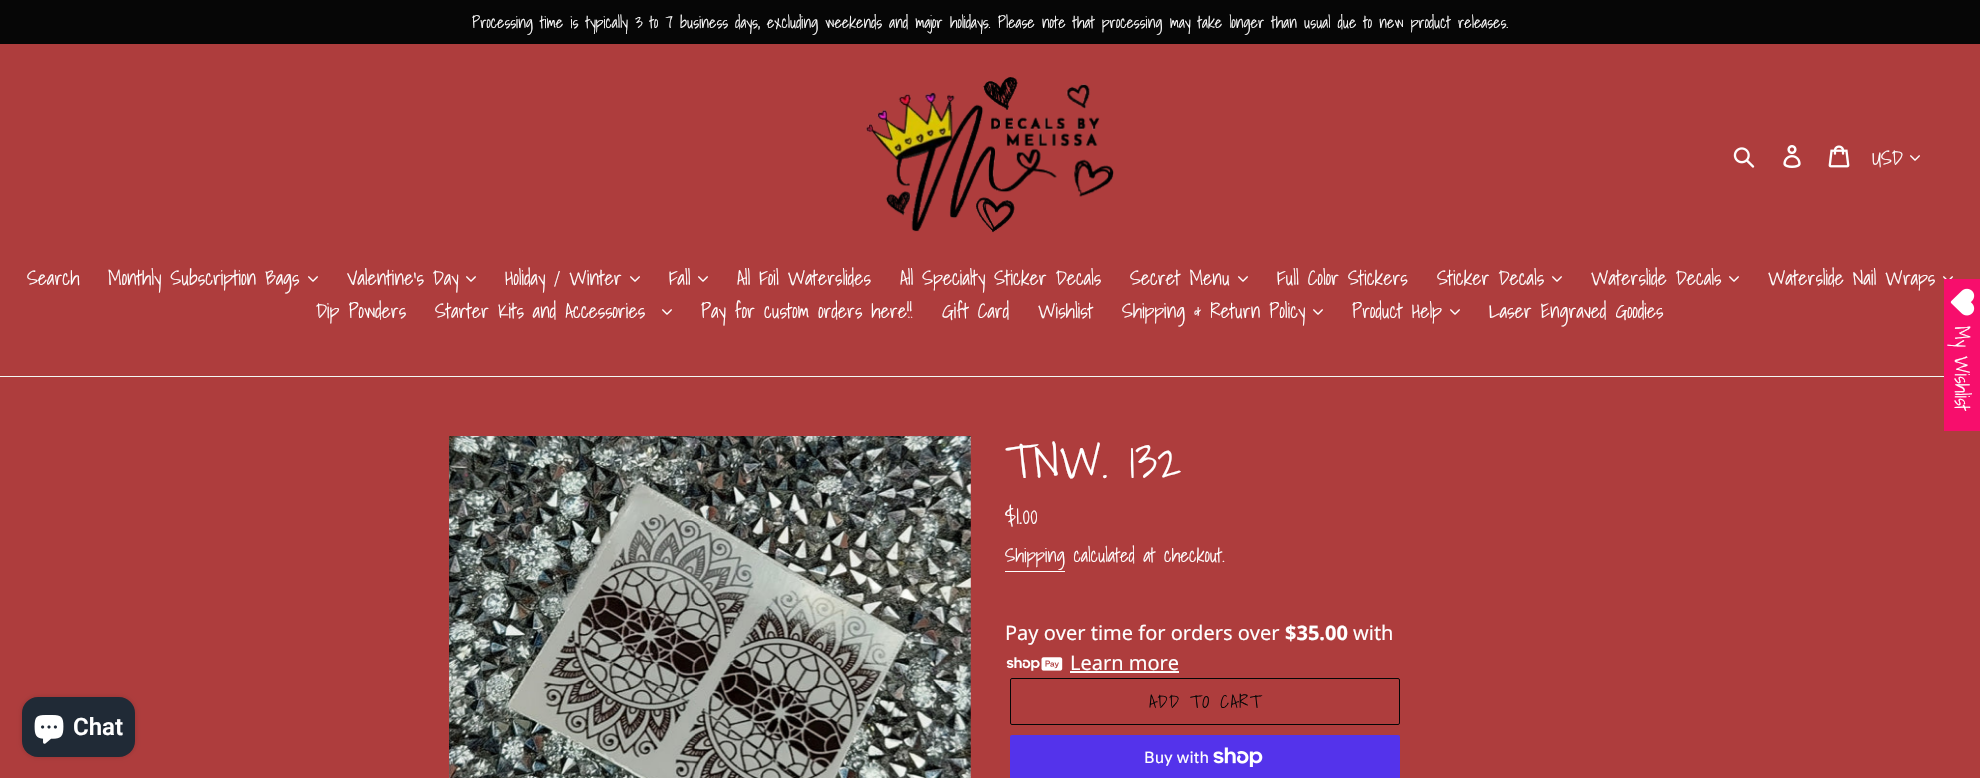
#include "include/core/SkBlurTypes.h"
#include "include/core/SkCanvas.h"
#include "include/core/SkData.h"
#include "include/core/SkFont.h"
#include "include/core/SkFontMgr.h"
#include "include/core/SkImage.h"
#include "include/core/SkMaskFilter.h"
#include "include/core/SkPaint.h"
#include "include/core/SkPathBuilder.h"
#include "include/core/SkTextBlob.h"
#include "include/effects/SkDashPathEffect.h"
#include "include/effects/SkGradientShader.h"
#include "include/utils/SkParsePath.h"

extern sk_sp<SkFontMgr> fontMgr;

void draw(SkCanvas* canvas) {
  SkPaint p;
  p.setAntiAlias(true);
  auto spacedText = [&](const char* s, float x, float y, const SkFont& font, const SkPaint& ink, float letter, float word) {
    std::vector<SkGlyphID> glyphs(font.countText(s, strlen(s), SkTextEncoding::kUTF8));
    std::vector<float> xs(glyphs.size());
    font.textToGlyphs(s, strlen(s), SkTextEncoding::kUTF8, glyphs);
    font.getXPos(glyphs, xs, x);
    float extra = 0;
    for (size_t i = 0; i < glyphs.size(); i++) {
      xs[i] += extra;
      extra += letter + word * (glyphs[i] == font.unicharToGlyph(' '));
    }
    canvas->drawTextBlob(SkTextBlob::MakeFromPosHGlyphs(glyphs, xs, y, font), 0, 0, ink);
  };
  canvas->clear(SkColorSetRGB(174, 61, 61));
  p.setColor(SkColorSetRGB(6, 6, 6));
  canvas->drawRect(SkRect::MakeLTRB(0, 0, 1980, 44), p);
  canvas->drawImageRect(SkImages::DeferredFromEncodedData(SkData::MakeFromFileName("images/1.png")), SkRect::MakeLTRB(866, 77, 1114, 233), SkSamplingOptions());
  canvas->drawImageRect(SkImages::DeferredFromEncodedData(SkData::MakeFromFileName("images/2.png")), SkRect::MakeLTRB(1733, 147, 1755, 168), SkSamplingOptions());
  canvas->drawImageRect(SkImages::DeferredFromEncodedData(SkData::MakeFromFileName("images/3.png")), SkRect::MakeLTRB(1783, 145, 1801, 168), SkSamplingOptions());
  canvas->drawImageRect(SkImages::DeferredFromEncodedData(SkData::MakeFromFileName("images/4.png")), SkRect::MakeLTRB(1828, 145, 1850, 168), SkSamplingOptions());
  canvas->drawImageRect(SkImages::DeferredFromEncodedData(SkData::MakeFromFileName("images/5.png")), SkRect::MakeLTRB(1910, 155, 1920, 161), SkSamplingOptions());
  p.setColor(SkColorSetRGB(244, 249, 244));
  canvas->drawRect(SkRect::MakeLTRB(0, 376, 1944, 377), p);
  canvas->drawImageRect(SkImages::DeferredFromEncodedData(SkData::MakeFromFileName("images/5.png")), SkRect::MakeLTRB(308, 276, 318, 282), SkSamplingOptions());
  canvas->drawImageRect(SkImages::DeferredFromEncodedData(SkData::MakeFromFileName("images/5.png")), SkRect::MakeLTRB(466, 276, 476, 282), SkSamplingOptions());
  canvas->drawImageRect(SkImages::DeferredFromEncodedData(SkData::MakeFromFileName("images/5.png")), SkRect::MakeLTRB(630, 276, 640, 282), SkSamplingOptions());
  canvas->drawImageRect(SkImages::DeferredFromEncodedData(SkData::MakeFromFileName("images/5.png")), SkRect::MakeLTRB(698, 276, 708, 282), SkSamplingOptions());
  canvas->drawImageRect(SkImages::DeferredFromEncodedData(SkData::MakeFromFileName("images/5.png")), SkRect::MakeLTRB(1238, 276, 1248, 282), SkSamplingOptions());
  canvas->drawImageRect(SkImages::DeferredFromEncodedData(SkData::MakeFromFileName("images/5.png")), SkRect::MakeLTRB(1552, 276, 1562, 282), SkSamplingOptions());
  canvas->drawImageRect(SkImages::DeferredFromEncodedData(SkData::MakeFromFileName("images/5.png")), SkRect::MakeLTRB(1729, 276, 1739, 282), SkSamplingOptions());
  canvas->drawImageRect(SkImages::DeferredFromEncodedData(SkData::MakeFromFileName("images/6.png")), SkRect::MakeLTRB(1943, 276, 1953, 279), SkSamplingOptions());
  canvas->drawImageRect(SkImages::DeferredFromEncodedData(SkData::MakeFromFileName("images/5.png")), SkRect::MakeLTRB(662, 309, 672, 315), SkSamplingOptions());
  canvas->drawImageRect(SkImages::DeferredFromEncodedData(SkData::MakeFromFileName("images/5.png")), SkRect::MakeLTRB(1313, 309, 1323, 315), SkSamplingOptions());
  canvas->drawImageRect(SkImages::DeferredFromEncodedData(SkData::MakeFromFileName("images/5.png")), SkRect::MakeLTRB(1450, 309, 1460, 315), SkSamplingOptions());
  p.setColor(SkColorSetRGB(247, 14, 108));
  canvas->drawRect(SkRect::MakeLTRB(1944, 279, 1980, 431), p);
  canvas->drawImageRect(SkImages::DeferredFromEncodedData(SkData::MakeFromFileName("images/7.png")), SkRect::MakeLTRB(1950, 288, 1975, 316), SkSamplingOptions());
  p.setColor(SkColorSetARGB(38, 0, 0, 0));
  p.setMaskFilter(SkMaskFilter::MakeBlur(kNormal_SkBlurStyle, 2.5f));
  canvas->drawRoundRect(SkRect::MakeLTRB(22, 697, 135, 757), 16, 16, p);
  p.setMaskFilter(nullptr);
  p.setColor(SkColorSetRGB(32, 42, 54));
  canvas->drawRoundRect(SkRect::MakeLTRB(22, 697, 135, 757), 16, 16, p);
  canvas->drawImageRect(SkImages::DeferredFromEncodedData(SkData::MakeFromFileName("images/8.png")), SkRect::MakeLTRB(34, 715, 64, 744), SkSamplingOptions());
  canvas->drawImageRect(SkImages::DeferredFromEncodedData(SkData::MakeFromFileName("images/9.png")), SkRect::MakeLTRB(449, 436, 971, 778), SkSamplingOptions());
  p.setColor(SK_ColorWHITE);
  canvas->drawRect(SkRect::MakeLTRB(1005, 571, 1065, 572), p);
  canvas->drawImageRect(SkImages::DeferredFromEncodedData(SkData::MakeFromFileName("images/10.png")), SkRect::MakeLTRB(1006, 657, 1063, 671), SkSamplingOptions());
  canvas->drawRect(SkRect::MakeLTRB(1070, 671, 1179, 673), p);
  p.setStyle(SkPaint::kStroke_Style);
  p.setStrokeWidth(1);
  p.setColor(SkColorSetRGB(6, 6, 6));
  canvas->drawRoundRect(SkRect::MakeLTRB(1010.5f, 678.5f, 1399.5f, 724.5f), 1.5f, 1.5f, p);
  p.setStyle(SkPaint::kFill_Style);
  p.setColor(SkColorSetRGB(84, 51, 235));
  canvas->drawRoundRect(SkRect::MakeLTRB(1010, 735, 1400, 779), 2, 2, p);
  canvas->drawImageRect(SkImages::DeferredFromEncodedData(SkData::MakeFromFileName("images/11.png")), SkRect::MakeLTRB(1213, 747, 1263, 767), SkSamplingOptions());
  SkFont font1(fontMgr->matchFamilyStyle("Shadows Into Light", SkFontStyle::Normal()), 16);
  font1.setSubpixel(true);
  p.setColor(SK_ColorWHITE);
  canvas->drawString("Processing time is typically 3 to 7 business days, excluding weekends and major holidays. Please note that processing may take longer than usual due to new product releases.", 472, 28, font1, p);
  SkFont font2(fontMgr->matchFamilyStyle("Shadows Into Light", SkFontStyle::Normal()), 20);
  font2.setSubpixel(true);
  canvas->drawString("USD", 1872, 165, font2, p);
  canvas->drawString("Search", 27, 285, font2, p);
  canvas->drawString("Monthly Subscription Bags", 108, 285, font2, p);
  canvas->drawString("Valentine's Day", 347, 285, font2, p);
  canvas->drawString("Holiday / Winter", 505, 285, font2, p);
  canvas->drawString("Fall", 669, 285, font2, p);
  canvas->drawString("All Foil Waterslides", 737, 285, font2, p);
  canvas->drawString("All Specialty Sticker Decals", 900, 285, font2, p);
  canvas->drawString("Secret Menu", 1130, 285, font2, p);
  canvas->drawString("Full Color Stickers", 1277, 285, font2, p);
  canvas->drawString("Sticker Decals", 1437, 285, font2, p);
  canvas->drawString("Waterslide Decals", 1591, 285, font2, p);
  canvas->drawString("Waterslide Nail Wraps", 1768, 285, font2, p);
  canvas->drawString("Dip Powders", 316, 318, font2, p);
  canvas->drawString("Starter Kits and Accessories", 435, 318, font2, p);
  canvas->drawString("Pay for custom orders here!!", 701, 318, font2, p);
  canvas->drawString("Gift Card", 942, 318, font2, p);
  canvas->drawString("Wishlist", 1038, 318, font2, p);
  canvas->drawString("Shipping & Return Policy", 1122, 318, font2, p);
  canvas->drawString("Product Help", 1352, 318, font2, p);
  canvas->drawString("Laser Engraved Goodies", 1489, 318, font2, p);
  canvas->save();
  canvas->rotate(90, 1955, 326);
  canvas->drawString("My Wishlist", 1955, 326, font2, p);
  canvas->restore();
  SkFont font3(fontMgr->matchFamilyStyle("Roboto", SkFontStyle(600, SkFontStyle::kNormal_Width, SkFontStyle::kUpright_Slant)), 24);
  font3.setSubpixel(true);
  canvas->drawString("Chat", 73, 735, font3, p);
  SkFont font4(fontMgr->matchFamilyStyle("Shadows Into Light", SkFontStyle::Normal()), 48);
  font4.setSubpixel(true);
  canvas->drawString("TNW. 132", 1005, 478, font4, p);
  SkFont font5(fontMgr->matchFamilyStyle("Shadows Into Light", SkFontStyle::Normal()), 25);
  font5.setSubpixel(true);
  canvas->drawString("$1.00", 1005, 524, font5, p);
  SkFont font6(fontMgr->matchFamilyStyle("Shadows Into Light", SkFontStyle::Normal()), 19);
  font6.setSubpixel(true);
  canvas->drawString("Shipping calculated at checkout.", 1005, 562, font6, p);
  SkFont font7(fontMgr->matchFamilyStyle("Noto Sans", SkFontStyle::Normal()), 20);
  font7.setSubpixel(true);
  canvas->drawString("Pay over time for orders over", 1005, 640, font7, p);
  SkFont font8(fontMgr->matchFamilyStyle("Noto Sans", SkFontStyle::Bold()), 20);
  font8.setSubpixel(true);
  canvas->drawString("$35.00", 1285, 640, font8, p);
  canvas->drawString("with", 1353, 640, font7, p);
  canvas->drawString("Learn more", 1070, 670, font7, p);
  SkFont font9(fontMgr->matchFamilyStyle("Shadows Into Light", SkFontStyle::Normal()), 18);
  font9.setSubpixel(true);
  p.setColor(SkColorSetRGB(6, 6, 6));
  spacedText("ADD TO CART", 1149, 708, font9, p, 1.5f, 0);
  SkFont font10(fontMgr->matchFamilyStyle("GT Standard", SkFontStyle::Normal()), 16);
  font10.setSubpixel(true);
  p.setColor(SK_ColorWHITE);
  canvas->drawString("Buy with", 1144, 763, font10, p);
}
